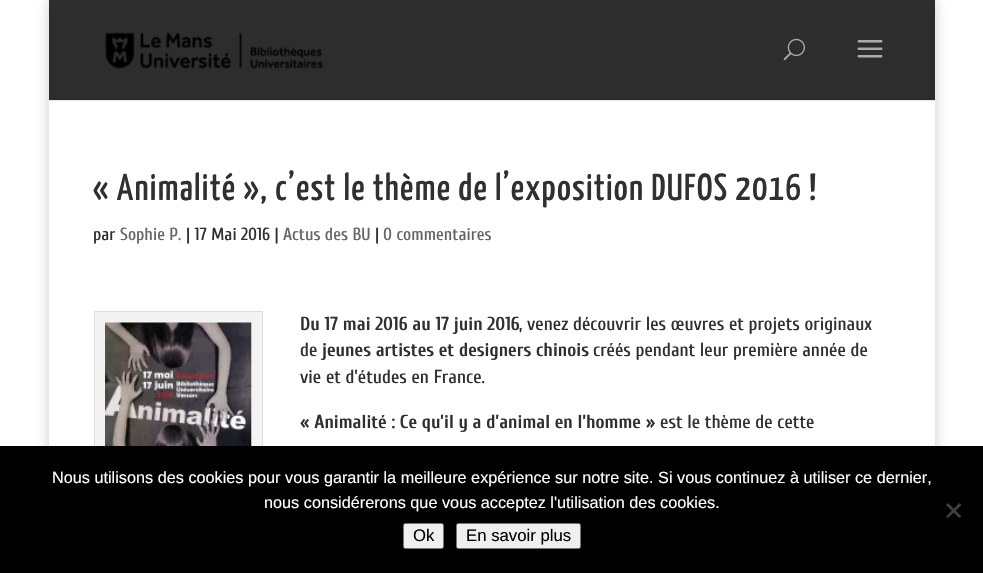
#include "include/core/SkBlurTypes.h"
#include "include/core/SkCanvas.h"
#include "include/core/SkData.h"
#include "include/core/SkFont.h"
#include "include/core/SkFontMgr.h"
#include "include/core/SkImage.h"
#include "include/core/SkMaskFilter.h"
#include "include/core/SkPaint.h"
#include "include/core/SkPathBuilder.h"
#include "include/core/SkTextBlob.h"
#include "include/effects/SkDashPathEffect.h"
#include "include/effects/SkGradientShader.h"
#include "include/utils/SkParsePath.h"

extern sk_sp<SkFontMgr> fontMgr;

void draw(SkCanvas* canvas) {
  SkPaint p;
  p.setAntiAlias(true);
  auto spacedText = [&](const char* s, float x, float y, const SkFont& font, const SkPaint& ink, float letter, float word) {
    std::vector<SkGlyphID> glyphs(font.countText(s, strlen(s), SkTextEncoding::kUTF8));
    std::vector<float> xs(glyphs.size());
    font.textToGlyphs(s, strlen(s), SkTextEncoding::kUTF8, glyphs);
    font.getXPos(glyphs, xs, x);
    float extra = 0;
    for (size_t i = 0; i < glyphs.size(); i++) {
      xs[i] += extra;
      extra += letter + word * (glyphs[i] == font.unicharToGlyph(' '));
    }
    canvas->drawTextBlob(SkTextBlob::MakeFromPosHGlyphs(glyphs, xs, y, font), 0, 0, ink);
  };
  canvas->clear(SK_ColorWHITE);
  canvas->save();
  canvas->clipPath(SkPathBuilder(SkPathFillType::kEvenOdd).moveTo(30, 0).lineTo(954, 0).lineTo(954, 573).lineTo(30, 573).close().moveTo(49, 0).lineTo(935, 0).lineTo(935, 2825).lineTo(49, 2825).close().detach(), true);
  p.setColor(SkColorSetARGB(51, 0, 0, 0));
  p.setMaskFilter(SkMaskFilter::MakeBlur(kNormal_SkBlurStyle, 6));
  canvas->drawRect(SkRect::MakeLTRB(49, 0, 935, 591), p);
  p.setMaskFilter(nullptr);
  canvas->restore();
  p.setColor(SkColorSetRGB(230, 230, 230));
  canvas->drawRect(SkRect::MakeLTRB(49, 100, 935, 101), p);
  p.setColor(SkColorSetRGB(45, 45, 45));
  canvas->drawRect(SkRect::MakeLTRB(49, 0, 935, 100), p);
  canvas->drawImageRect(SkImages::DeferredFromEncodedData(SkData::MakeFromFileName("images/1.png")), SkRect::MakeLTRB(105, 32, 323, 69), SkSamplingOptions());
  canvas->drawImageRect(SkImages::DeferredFromEncodedData(SkData::MakeFromFileName("images/2.png")), SkRect::MakeLTRB(783, 38, 805, 61), SkSamplingOptions());
  canvas->drawImageRect(SkImages::DeferredFromEncodedData(SkData::MakeFromFileName("images/3.png")), SkRect::MakeLTRB(857, 40, 883, 58), SkSamplingOptions());
  p.setColor(SkColorSetRGB(243, 243, 243));
  canvas->drawRect(SkRect::MakeLTRB(95, 312, 262, 446), p);
  p.setStyle(SkPaint::kStroke_Style);
  p.setStrokeWidth(1);
  p.setColor(SkColorSetRGB(221, 221, 221));
  canvas->drawRect(SkRect::MakeLTRB(94.5f, 311.5f, 262.5f, 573.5f), p);
  canvas->drawImageRect(SkImages::DeferredFromEncodedData(SkData::MakeFromFileName("images/4.png")), SkRect::MakeLTRB(105, 322, 252, 446), SkSamplingOptions());
  p.setStyle(SkPaint::kFill_Style);
  p.setColor(SK_ColorBLACK);
  canvas->drawRect(SkRect::MakeLTRB(0, 446, 983, 573), p);
  p.setColor(SkColorSetRGB(64, 64, 64));
  canvas->drawPath(SkPathBuilder().moveTo(959.5f, 503).lineTo(961.5f, 505).lineTo(948, 518).lineTo(946, 516.5f).close().detach(), p);
  canvas->drawPath(SkPathBuilder().moveTo(946, 505).lineTo(948, 503).lineTo(961.5f, 516.5f).lineTo(959.5f, 518).close().detach(), p);
  p.setColor(SkColorSetRGB(239, 239, 239));
  canvas->drawRoundRect(SkRect::MakeLTRB(403.5f, 523.5f, 443.5f, 548.5f), 2, 2, p);
  p.setStyle(SkPaint::kStroke_Style);
  p.setColor(SkColorSetRGB(118, 118, 118));
  canvas->drawRoundRect(SkRect::MakeLTRB(403.5f, 523.5f, 443.5f, 548.5f), 2, 2, p);
  p.setStyle(SkPaint::kFill_Style);
  p.setColor(SkColorSetRGB(239, 239, 239));
  canvas->drawRoundRect(SkRect::MakeLTRB(456.5f, 523.5f, 580.5f, 548.5f), 2, 2, p);
  p.setStyle(SkPaint::kStroke_Style);
  p.setColor(SkColorSetRGB(118, 118, 118));
  canvas->drawRoundRect(SkRect::MakeLTRB(456.5f, 523.5f, 580.5f, 548.5f), 2, 2, p);
  SkFont font1(fontMgr->matchFamilyStyle("Yanone Kaffeesatz", SkFontStyle(500, SkFontStyle::kNormal_Width, SkFontStyle::kUpright_Slant)), 37.5f);
  font1.setSubpixel(true);
  p.setStyle(SkPaint::kFill_Style);
  p.setColor(SkColorSetRGB(48, 48, 48));
  spacedText("« Animalité », c’est le thème de l’exposition DUFOS 2016 !", 93, 200, font1, p, 1.25f, 0);
  SkFont font2(fontMgr->matchFamilyStyle("Cuprum", SkFontStyle(500, SkFontStyle::kNormal_Width, SkFontStyle::kUpright_Slant)), 17.5f);
  font2.setSubpixel(true);
  canvas->drawString("par", 93, 240, font2, p);
  p.setColor(SkColorSetRGB(102, 102, 102));
  canvas->drawString("Sophie P.", 120, 240, font2, p);
  p.setColor(SkColorSetRGB(48, 48, 48));
  canvas->drawString("| 17 Mai 2016 |", 186, 240, font2, p);
  p.setColor(SkColorSetRGB(102, 102, 102));
  canvas->drawString("Actus des BU", 283, 240, font2, p);
  p.setColor(SkColorSetRGB(48, 48, 48));
  canvas->drawString("|", 375, 240, font2, p);
  p.setColor(SkColorSetRGB(102, 102, 102));
  canvas->drawString("0 commentaires", 383, 240, font2, p);
  SkFont font3(fontMgr->matchFamilyStyle("Cuprum", SkFontStyle::Bold()), 18.75f);
  font3.setSubpixel(true);
  p.setColor(SkColorSetRGB(48, 48, 48));
  canvas->drawString("Du 17 mai 2016 au 17 juin 2016", 300, 330, font3, p);
  SkFont font4(fontMgr->matchFamilyStyle("Cuprum", SkFontStyle(500, SkFontStyle::kNormal_Width, SkFontStyle::kUpright_Slant)), 18.75f);
  font4.setSubpixel(true);
  canvas->drawString(", venez découvrir les œuvres et projets originaux", 519, 330, font4, p);
  canvas->drawString("de", 300, 356, font4, p);
  canvas->drawString("jeunes artistes et designers chinois", 322, 356, font3, p);
  canvas->drawString("créés pendant leur première année de", 593, 356, font4, p);
  canvas->drawString("vie et d’études en France.", 300, 383, font4, p);
  canvas->drawString("« Animalité : Ce qu’il y a d’animal en l’homme »", 300, 428, font3, p);
  canvas->drawString("est le thème de cette", 660, 428, font4, p);
  SkFont font5(fontMgr->matchFamilyStyle("Liberation Sans", SkFontStyle::Normal()), 16.25f);
  font5.setSubpixel(true);
  p.setColor(SK_ColorWHITE);
  canvas->drawString("Nous utilisons des cookies pour vous garantir la meilleure expérience sur notre site. Si vous continuez à utiliser ce dernier,", 52, 483, font5, p);
  canvas->drawString("nous considérerons que vous acceptez l'utilisation des cookies.", 264, 508, font5, p);
  SkFont font6(fontMgr->matchFamilyStyle("Liberation Sans", SkFontStyle::Normal()), 16.75f);
  font6.setSubpixel(true);
  p.setColor(SK_ColorBLACK);
  canvas->drawString("Ok", 413, 541, font6, p);
  canvas->drawString("En savoir plus", 466, 541, font6, p);
}
